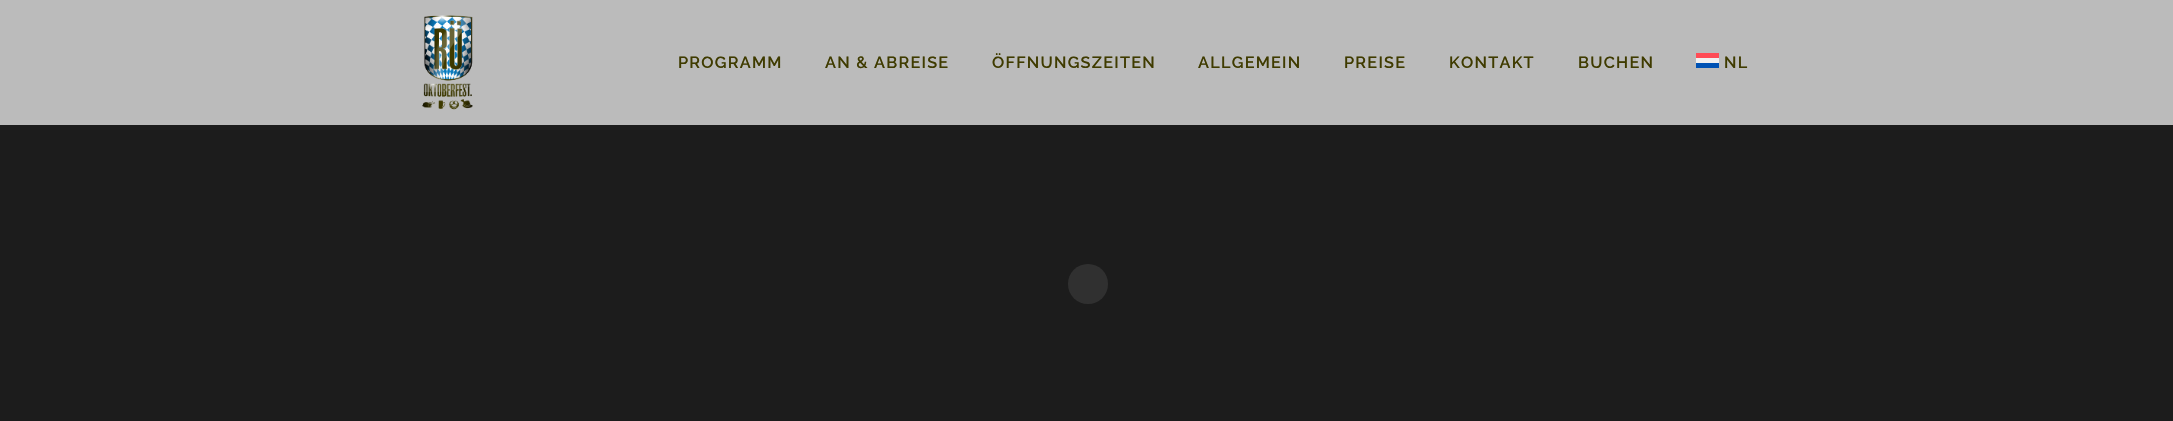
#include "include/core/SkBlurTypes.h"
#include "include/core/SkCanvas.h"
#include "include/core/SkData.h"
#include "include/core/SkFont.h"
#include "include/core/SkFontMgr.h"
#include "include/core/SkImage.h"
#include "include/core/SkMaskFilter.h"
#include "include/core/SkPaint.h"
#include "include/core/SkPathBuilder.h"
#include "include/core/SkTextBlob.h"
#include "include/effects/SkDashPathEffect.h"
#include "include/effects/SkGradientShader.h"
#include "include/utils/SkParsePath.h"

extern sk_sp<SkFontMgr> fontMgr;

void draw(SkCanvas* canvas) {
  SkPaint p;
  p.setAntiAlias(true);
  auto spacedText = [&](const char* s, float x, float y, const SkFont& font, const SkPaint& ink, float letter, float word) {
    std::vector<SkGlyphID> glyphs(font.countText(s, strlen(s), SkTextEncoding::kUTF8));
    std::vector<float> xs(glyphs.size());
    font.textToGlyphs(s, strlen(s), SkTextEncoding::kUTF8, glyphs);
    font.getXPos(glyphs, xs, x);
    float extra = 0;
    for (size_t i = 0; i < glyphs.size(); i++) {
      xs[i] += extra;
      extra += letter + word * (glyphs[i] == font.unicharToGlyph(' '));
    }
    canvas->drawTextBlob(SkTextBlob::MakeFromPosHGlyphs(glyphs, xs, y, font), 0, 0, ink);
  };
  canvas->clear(SkColorSetRGB(28, 28, 28));
  p.setColor(SkColorSetRGB(187, 187, 187));
  canvas->drawRect(SkRect::MakeLTRB(0, 0, 2173, 125), p);
  canvas->drawImageRect(SkImages::DeferredFromEncodedData(SkData::MakeFromFileName("images/1.png")), SkRect::MakeLTRB(422, 15, 473, 110), SkSamplingOptions());
  p.setColor(SkColorSetRGB(255, 75, 85));
  canvas->drawRect(SkRect::MakeLTRB(1696, 53, 1719, 58), p);
  p.setColor(SkColorSetRGB(240, 240, 240));
  canvas->drawRect(SkRect::MakeLTRB(1696, 58, 1719, 63), p);
  p.setColor(SkColorSetRGB(0, 82, 180));
  canvas->drawRect(SkRect::MakeLTRB(1696, 63, 1719, 68), p);
  p.setColor(SkColorSetRGB(48, 48, 48));
  canvas->drawCircle(1088, 284, 20, p);
  SkFont font1(fontMgr->matchFamilyStyle("Raleway", SkFontStyle(600, SkFontStyle::kNormal_Width, SkFontStyle::kUpright_Slant)), 16.25f);
  font1.setSubpixel(true);
  p.setColor(SkColorSetRGB(63, 59, 0));
  spacedText("PROGRAMM", 678, 68, font1, p, 1.25f, 0);
  spacedText("AN & ABREISE", 825, 68, font1, p, 1.25f, 0);
  spacedText("ÖFFNUNGSZEITEN", 992, 68, font1, p, 1.25f, 0);
  spacedText("ALLGEMEIN", 1198, 68, font1, p, 1.25f, 0);
  spacedText("PREISE", 1344, 68, font1, p, 1.25f, 0);
  spacedText("KONTAKT", 1449, 68, font1, p, 1.25f, 0);
  spacedText("BUCHEN", 1578, 68, font1, p, 1.25f, 0);
  spacedText("NL", 1724, 68, font1, p, 1.25f, 0);
}
